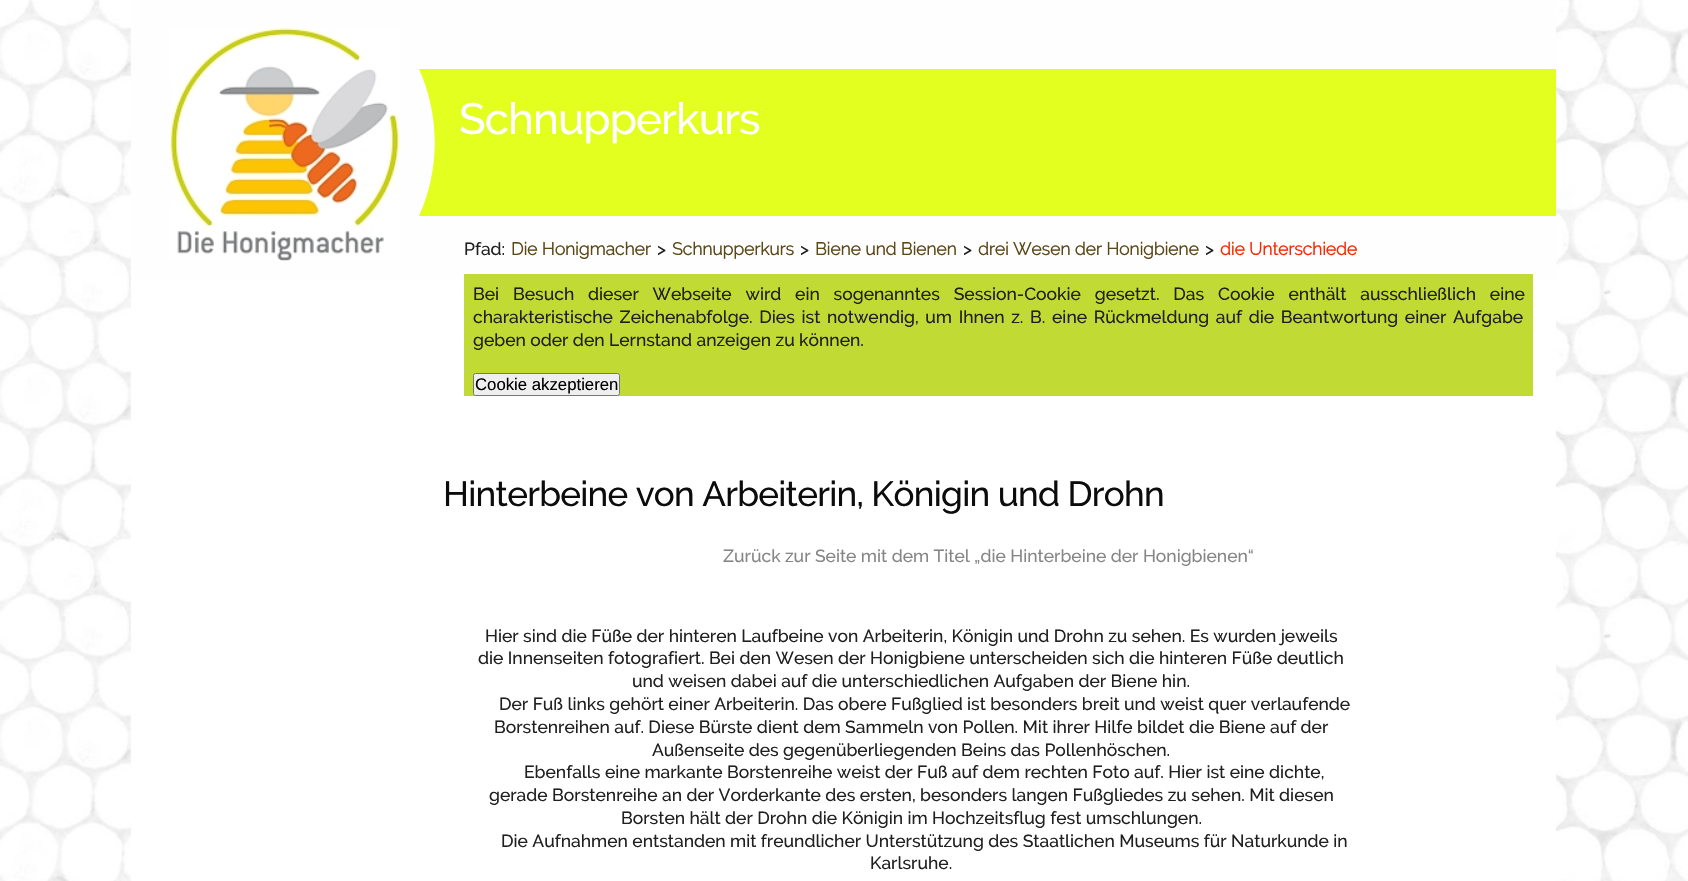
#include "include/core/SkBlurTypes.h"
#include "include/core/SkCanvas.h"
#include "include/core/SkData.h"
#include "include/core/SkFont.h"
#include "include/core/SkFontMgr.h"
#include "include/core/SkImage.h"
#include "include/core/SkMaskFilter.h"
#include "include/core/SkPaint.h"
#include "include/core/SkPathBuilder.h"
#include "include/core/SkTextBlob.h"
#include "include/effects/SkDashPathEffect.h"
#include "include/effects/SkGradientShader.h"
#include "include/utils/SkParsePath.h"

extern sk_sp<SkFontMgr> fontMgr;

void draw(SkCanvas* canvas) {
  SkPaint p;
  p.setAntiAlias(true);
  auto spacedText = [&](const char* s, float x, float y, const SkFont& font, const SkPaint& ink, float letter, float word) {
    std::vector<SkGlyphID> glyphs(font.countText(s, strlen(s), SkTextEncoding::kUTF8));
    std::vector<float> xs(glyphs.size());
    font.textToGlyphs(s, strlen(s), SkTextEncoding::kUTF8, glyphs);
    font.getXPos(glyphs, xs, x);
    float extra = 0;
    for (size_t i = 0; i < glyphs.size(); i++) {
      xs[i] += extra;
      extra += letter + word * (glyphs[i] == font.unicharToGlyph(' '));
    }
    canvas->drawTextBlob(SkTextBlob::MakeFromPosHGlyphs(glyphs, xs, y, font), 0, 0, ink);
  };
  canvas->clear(SK_ColorWHITE);
  canvas->drawImageRect(SkImages::DeferredFromEncodedData(SkData::MakeFromFileName("images/1.png")), SkRect::MakeLTRB(0, 0, 1688, 881), SkSamplingOptions());
  p.setColor(SkColorSetRGB(254, 254, 254));
  canvas->drawRect(SkRect::MakeLTRB(131, 0, 1556, 280), p);
  canvas->save();
  canvas->clipRect(SkRect::MakeLTRB(419, 69, 1556, 216));
  p.setColor(SkColorSetRGB(226, 255, 31));
  canvas->drawPath(SkPathBuilder().moveTo(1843, 69).lineTo(419, 69).cubicTo(440, 115, 440, 170, 419, 216).lineTo(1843, 216).close().detach(), p);
  canvas->restore();
  canvas->drawImageRect(SkImages::DeferredFromEncodedData(SkData::MakeFromFileName("images/2.png")), SkRect::MakeLTRB(170, 27, 400, 261), SkSamplingOptions());
  p.setColor(SK_ColorWHITE);
  canvas->drawRect(SkRect::MakeLTRB(131, 280, 1556, 881), p);
  p.setColor(SkColorSetRGB(193, 218, 52));
  canvas->drawRect(SkRect::MakeLTRB(464, 274, 1533, 396), p);
  p.setColor(SkColorSetRGB(239, 239, 239));
  canvas->drawRoundRect(SkRect::MakeLTRB(473.5f, 373.5f, 619.5f, 395.5f), 2, 2, p);
  p.setStyle(SkPaint::kStroke_Style);
  p.setStrokeWidth(1);
  p.setColor(SkColorSetRGB(118, 118, 118));
  canvas->drawRoundRect(SkRect::MakeLTRB(473.5f, 373.5f, 619.5f, 395.5f), 2, 2, p);
  SkFont font1(fontMgr->matchFamilyStyle("Raleway", SkFontStyle(500, SkFontStyle::kNormal_Width, SkFontStyle::kUpright_Slant)), 43.75f);
  font1.setSubpixel(true);
  p.setStyle(SkPaint::kFill_Style);
  p.setColor(SK_ColorWHITE);
  spacedText("Schnupperkurs", 459, 134, font1, p, -0.9f, 0);
  SkFont font2(fontMgr->matchFamilyStyle("Raleway", SkFontStyle(500, SkFontStyle::kNormal_Width, SkFontStyle::kUpright_Slant)), 17.5f);
  font2.setSubpixel(true);
  p.setColor(SkColorSetRGB(32, 32, 32));
  canvas->drawString("Pfad:", 464, 255, font2, p);
  SkFont font3(fontMgr->matchFamilyStyle("Raleway", SkFontStyle::Bold()), 17.5f);
  font3.setSubpixel(true);
  p.setColor(SkColorSetRGB(92, 72, 22));
  canvas->drawString("Die Honigmacher", 511, 255, font3, p);
  p.setColor(SkColorSetRGB(32, 32, 32));
  canvas->drawString(">", 657, 255, font2, p);
  p.setColor(SkColorSetRGB(92, 72, 22));
  canvas->drawString("Schnupperkurs", 672, 255, font3, p);
  p.setColor(SkColorSetRGB(32, 32, 32));
  canvas->drawString(">", 800, 255, font2, p);
  p.setColor(SkColorSetRGB(92, 72, 22));
  canvas->drawString("Biene und Bienen", 815, 255, font3, p);
  p.setColor(SkColorSetRGB(32, 32, 32));
  canvas->drawString(">", 963, 255, font2, p);
  p.setColor(SkColorSetRGB(92, 72, 22));
  canvas->drawString("drei Wesen der Honigbiene", 978, 255, font3, p);
  p.setColor(SkColorSetRGB(32, 32, 32));
  canvas->drawString(">", 1205, 255, font2, p);
  p.setColor(SkColorSetRGB(251, 39, 0));
  canvas->drawString("die Unterschiede", 1220, 255, font3, p);
  p.setColor(SkColorSetRGB(32, 32, 32));
  spacedText("Bei Besuch dieser Webseite wird ein sogenanntes Session-Cookie gesetzt. Das Cookie enthält ausschließlich eine", 473, 300, font2, p, 0, 9.4f);
  spacedText("charakteristische Zeichenabfolge. Dies ist notwendig, um Ihnen z. B. eine Rückmeldung auf die Beantwortung einer Aufgabe", 473, 323, font2, p, 0, 2.25f);
  canvas->drawString("geben oder den Lernstand anzeigen zu können.", 473, 346, font2, p);
  SkFont font4(fontMgr->matchFamilyStyle("Liberation Sans", SkFontStyle::Normal()), 16.75f);
  font4.setSubpixel(true);
  p.setColor(SK_ColorBLACK);
  canvas->drawString("Cookie akzeptieren", 475, 390, font4, p);
  SkFont font5(fontMgr->matchFamilyStyle("Raleway", SkFontStyle(500, SkFontStyle::kNormal_Width, SkFontStyle::kUpright_Slant)), 35);
  font5.setSubpixel(true);
  p.setColor(SkColorSetRGB(12, 12, 12));
  spacedText("Hinterbeine von Arbeiterin, Königin und Drohn", 443, 506, font5, p, -0.7f, 0);
  p.setColor(SkColorSetRGB(134, 134, 134));
  canvas->drawString("Zurück zur Seite mit dem Titel „die Hinterbeine der Honigbienen“", 723, 562, font2, p);
  p.setColor(SkColorSetRGB(32, 32, 32));
  canvas->drawString("Hier sind die Füße der hinteren Laufbeine von Arbeiterin, Königin und Drohn zu sehen. Es wurden jeweils", 485, 642, font2, p);
  canvas->drawString("die Innenseiten fotografiert. Bei den Wesen der Honigbiene unterscheiden sich die hinteren Füße deutlich", 478, 664, font2, p);
  canvas->drawString("und weisen dabei auf die unterschiedlichen Aufgaben der Biene hin.", 632, 687, font2, p);
  canvas->drawString("Der Fuß links gehört einer Arbeiterin. Das obere Fußglied ist besonders breit und weist quer verlaufende", 499, 710, font2, p);
  canvas->drawString("Borstenreihen auf. Diese Bürste dient dem Sammeln von Pollen. Mit ihrer Hilfe bildet die Biene auf der", 494, 733, font2, p);
  canvas->drawString("Außenseite des gegenüberliegenden Beins das Pollenhöschen.", 652, 756, font2, p);
  canvas->drawString("Ebenfalls eine markante Borstenreihe weist der Fuß auf dem rechten Foto auf. Hier ist eine dichte,", 524, 778, font2, p);
  canvas->drawString("gerade Borstenreihe an der Vorderkante des ersten, besonders langen Fußgliedes zu sehen. Mit diesen", 489, 801, font2, p);
  canvas->drawString("Borsten hält der Drohn die Königin im Hochzeitsflug fest umschlungen.", 621, 824, font2, p);
  canvas->drawString("Die Aufnahmen entstanden mit freundlicher Unterstützung des Staatlichen Museums für Naturkunde in", 501, 847, font2, p);
  canvas->drawString("Karlsruhe.", 870, 869, font2, p);
}
